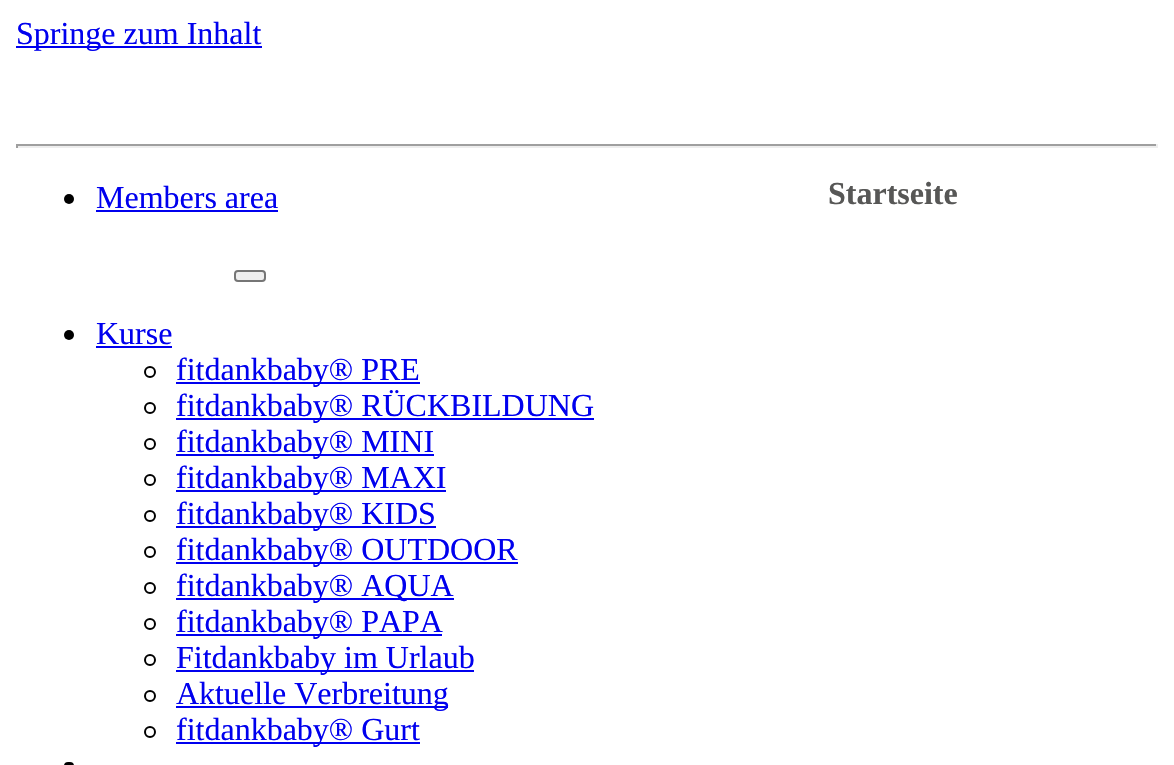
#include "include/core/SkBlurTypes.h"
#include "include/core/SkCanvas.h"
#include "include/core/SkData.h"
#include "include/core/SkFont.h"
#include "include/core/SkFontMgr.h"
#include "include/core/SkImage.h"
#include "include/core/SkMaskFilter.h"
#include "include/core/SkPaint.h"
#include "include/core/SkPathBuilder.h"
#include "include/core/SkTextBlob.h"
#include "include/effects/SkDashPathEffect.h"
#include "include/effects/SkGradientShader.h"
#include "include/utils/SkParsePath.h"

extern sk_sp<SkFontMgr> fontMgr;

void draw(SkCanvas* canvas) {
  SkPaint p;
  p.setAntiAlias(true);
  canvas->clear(SK_ColorWHITE);
  p.setColor(SkColorSetRGB(0, 0, 238));
  canvas->drawRect(SkRect::MakeLTRB(16, 46, 262, 48), p);
  p.setColor(SkColorSetRGB(159, 159, 159));
  canvas->drawRect(SkRect::MakeLTRB(16, 144, 1158, 146), p);
  p.setColor(SkColorSetRGB(238, 238, 238));
  canvas->drawRect(SkRect::MakeLTRB(1156, 144, 1158, 148), p);
  canvas->drawRect(SkRect::MakeLTRB(16, 146, 1158, 148), p);
  p.setColor(SkColorSetRGB(159, 159, 159));
  canvas->drawRect(SkRect::MakeLTRB(16, 144, 18, 148), p);
  p.setColor(SK_ColorBLACK);
  canvas->drawCircle(69, 199, 5, p);
  p.setColor(SkColorSetRGB(0, 0, 238));
  canvas->drawRect(SkRect::MakeLTRB(96, 210, 278, 212), p);
  p.setColor(SkColorSetRGB(239, 239, 239));
  canvas->drawRoundRect(SkRect::MakeLTRB(235, 271, 265, 281), 3, 3, p);
  p.setStyle(SkPaint::kStroke_Style);
  p.setStrokeWidth(2);
  p.setColor(SkColorSetRGB(118, 118, 118));
  canvas->drawRoundRect(SkRect::MakeLTRB(235, 271, 265, 281), 3, 3, p);
  p.setStyle(SkPaint::kFill_Style);
  p.setColor(SK_ColorBLACK);
  canvas->drawCircle(69, 335, 5, p);
  p.setColor(SkColorSetRGB(0, 0, 238));
  canvas->drawRect(SkRect::MakeLTRB(96, 346, 172, 348), p);
  p.setStyle(SkPaint::kStroke_Style);
  p.setColor(SK_ColorBLACK);
  canvas->drawCircle(150, 372, 5, p);
  p.setStyle(SkPaint::kFill_Style);
  p.setColor(SkColorSetRGB(0, 0, 238));
  canvas->drawRect(SkRect::MakeLTRB(176, 382, 420, 384), p);
  p.setStyle(SkPaint::kStroke_Style);
  p.setColor(SK_ColorBLACK);
  canvas->drawCircle(150, 408, 5, p);
  p.setStyle(SkPaint::kFill_Style);
  p.setColor(SkColorSetRGB(0, 0, 238));
  canvas->drawRect(SkRect::MakeLTRB(176, 418, 594, 420), p);
  p.setStyle(SkPaint::kStroke_Style);
  p.setColor(SK_ColorBLACK);
  canvas->drawCircle(150, 444, 5, p);
  p.setStyle(SkPaint::kFill_Style);
  p.setColor(SkColorSetRGB(0, 0, 238));
  canvas->drawRect(SkRect::MakeLTRB(176, 454, 434, 456), p);
  p.setStyle(SkPaint::kStroke_Style);
  p.setColor(SK_ColorBLACK);
  canvas->drawCircle(150, 480, 5, p);
  p.setStyle(SkPaint::kFill_Style);
  p.setColor(SkColorSetRGB(0, 0, 238));
  canvas->drawRect(SkRect::MakeLTRB(176, 490, 446, 492), p);
  p.setStyle(SkPaint::kStroke_Style);
  p.setColor(SK_ColorBLACK);
  canvas->drawCircle(150, 516, 5, p);
  p.setStyle(SkPaint::kFill_Style);
  p.setColor(SkColorSetRGB(0, 0, 238));
  canvas->drawRect(SkRect::MakeLTRB(176, 526, 436, 528), p);
  p.setStyle(SkPaint::kStroke_Style);
  p.setColor(SK_ColorBLACK);
  canvas->drawCircle(150, 552, 5, p);
  p.setStyle(SkPaint::kFill_Style);
  p.setColor(SkColorSetRGB(0, 0, 238));
  canvas->drawRect(SkRect::MakeLTRB(176, 562, 518, 564), p);
  p.setStyle(SkPaint::kStroke_Style);
  p.setColor(SK_ColorBLACK);
  canvas->drawCircle(150, 588, 5, p);
  p.setStyle(SkPaint::kFill_Style);
  p.setColor(SkColorSetRGB(0, 0, 238));
  canvas->drawRect(SkRect::MakeLTRB(176, 598, 454, 600), p);
  p.setStyle(SkPaint::kStroke_Style);
  p.setColor(SK_ColorBLACK);
  canvas->drawCircle(150, 624, 5, p);
  p.setStyle(SkPaint::kFill_Style);
  p.setColor(SkColorSetRGB(0, 0, 238));
  canvas->drawRect(SkRect::MakeLTRB(176, 634, 442, 636), p);
  p.setStyle(SkPaint::kStroke_Style);
  p.setColor(SK_ColorBLACK);
  canvas->drawCircle(150, 660, 5, p);
  p.setStyle(SkPaint::kFill_Style);
  p.setColor(SkColorSetRGB(0, 0, 238));
  canvas->drawRect(SkRect::MakeLTRB(176, 670, 474, 672), p);
  p.setStyle(SkPaint::kStroke_Style);
  p.setColor(SK_ColorBLACK);
  canvas->drawCircle(150, 696, 5, p);
  p.setStyle(SkPaint::kFill_Style);
  p.setColor(SkColorSetRGB(0, 0, 238));
  canvas->drawRect(SkRect::MakeLTRB(176, 706, 448, 708), p);
  p.setStyle(SkPaint::kStroke_Style);
  p.setColor(SK_ColorBLACK);
  canvas->drawCircle(150, 732, 5, p);
  p.setStyle(SkPaint::kFill_Style);
  p.setColor(SkColorSetRGB(0, 0, 238));
  canvas->drawRect(SkRect::MakeLTRB(176, 742, 420, 744), p);
  p.setColor(SK_ColorBLACK);
  canvas->drawRoundRect(SkRect::MakeLTRB(64, 762, 74, 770), 5, 5, p);
  SkFont font1(fontMgr->matchFamilyStyle("Liberation Serif", SkFontStyle::Normal()), 32);
  font1.setSubpixel(true);
  p.setColor(SkColorSetRGB(0, 0, 238));
  canvas->drawString("Springe zum Inhalt", 16, 44, font1, p);
  canvas->drawString("Members area", 96, 208, font1, p);
  SkFont font2(fontMgr->matchFamilyStyle("Liberation Serif", SkFontStyle::Bold()), 32);
  font2.setSubpixel(true);
  p.setColor(SkColorSetRGB(87, 87, 86));
  canvas->drawString("Startseite", 828, 204, font2, p);
  p.setColor(SkColorSetRGB(0, 0, 238));
  canvas->drawString("Kurse", 96, 344, font1, p);
  canvas->drawString("fitdankbaby® PRE", 176, 380, font1, p);
  canvas->drawString("fitdankbaby® RÜCKBILDUNG", 176, 416, font1, p);
  canvas->drawString("fitdankbaby® MINI", 176, 452, font1, p);
  canvas->drawString("fitdankbaby® MAXI", 176, 488, font1, p);
  canvas->drawString("fitdankbaby® KIDS", 176, 524, font1, p);
  canvas->drawString("fitdankbaby® OUTDOOR", 176, 560, font1, p);
  canvas->drawString("fitdankbaby® AQUA", 176, 596, font1, p);
  canvas->drawString("fitdankbaby® PAPA", 176, 632, font1, p);
  canvas->drawString("Fitdankbaby im Urlaub", 176, 668, font1, p);
  canvas->drawString("Aktuelle Verbreitung", 176, 704, font1, p);
  canvas->drawString("fitdankbaby® Gurt", 176, 740, font1, p);
}
